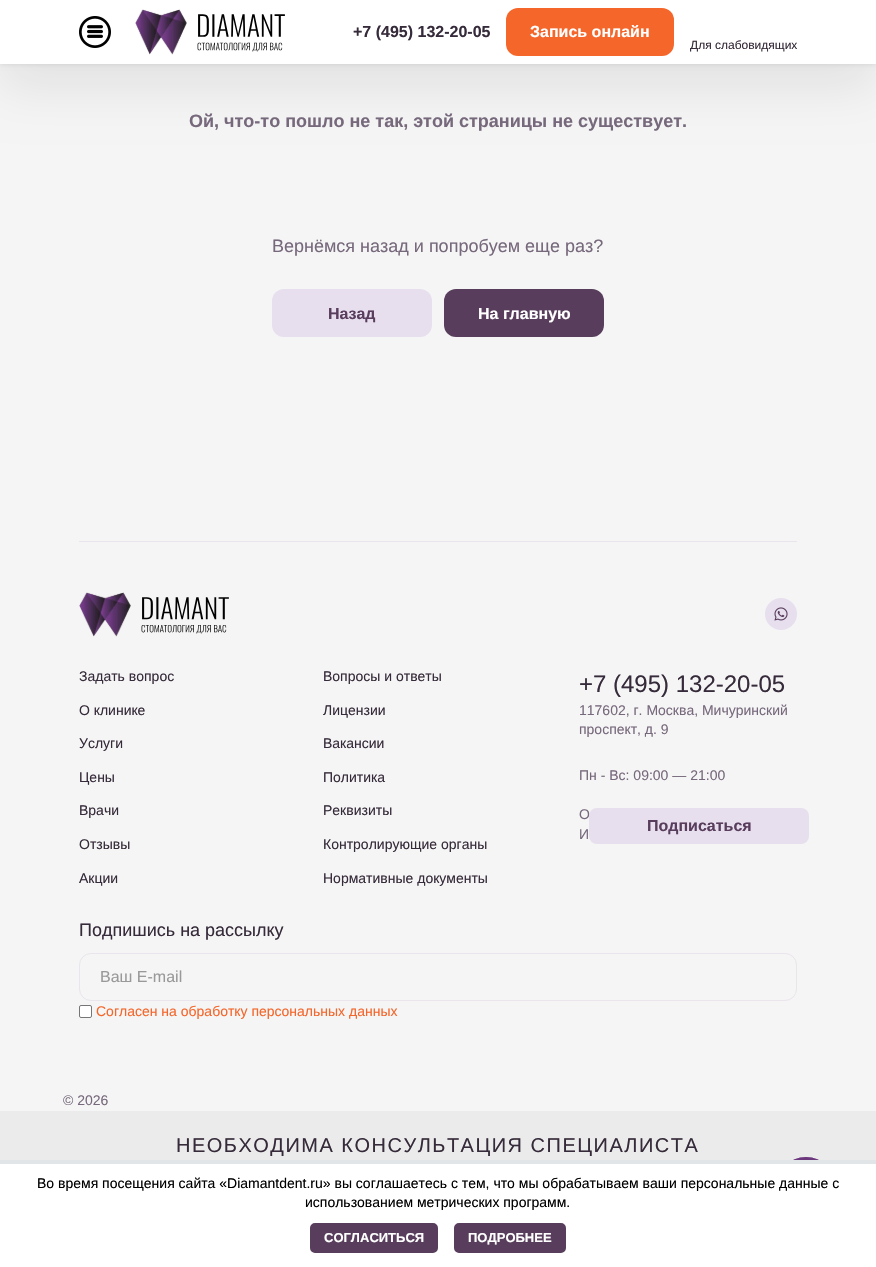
#include "include/core/SkBlurTypes.h"
#include "include/core/SkCanvas.h"
#include "include/core/SkData.h"
#include "include/core/SkFont.h"
#include "include/core/SkFontMgr.h"
#include "include/core/SkImage.h"
#include "include/core/SkMaskFilter.h"
#include "include/core/SkPaint.h"
#include "include/core/SkPathBuilder.h"
#include "include/core/SkTextBlob.h"
#include "include/effects/SkDashPathEffect.h"
#include "include/effects/SkGradientShader.h"
#include "include/utils/SkParsePath.h"

extern sk_sp<SkFontMgr> fontMgr;

void draw(SkCanvas* canvas) {
  SkPaint p;
  p.setAntiAlias(true);
  auto spacedText = [&](const char* s, float x, float y, const SkFont& font, const SkPaint& ink, float letter, float word) {
    std::vector<SkGlyphID> glyphs(font.countText(s, strlen(s), SkTextEncoding::kUTF8));
    std::vector<float> xs(glyphs.size());
    font.textToGlyphs(s, strlen(s), SkTextEncoding::kUTF8, glyphs);
    font.getXPos(glyphs, xs, x);
    float extra = 0;
    for (size_t i = 0; i < glyphs.size(); i++) {
      xs[i] += extra;
      extra += letter + word * (glyphs[i] == font.unicharToGlyph(' '));
    }
    canvas->drawTextBlob(SkTextBlob::MakeFromPosHGlyphs(glyphs, xs, y, font), 0, 0, ink);
  };
  canvas->clear(SkColorSetRGB(245, 245, 245));
  p.setColor(SkColorSetARGB(20, 0, 0, 0));
  p.setMaskFilter(SkMaskFilter::MakeBlur(kNormal_SkBlurStyle, 24));
  canvas->drawRect(SkRect::MakeLTRB(0, 24, 876, 88), p);
  p.setMaskFilter(nullptr);
  p.setMaskFilter(SkMaskFilter::MakeBlur(kNormal_SkBlurStyle, 2));
  canvas->drawRect(SkRect::MakeLTRB(0, 1, 876, 65), p);
  p.setMaskFilter(nullptr);
  p.setColor(SK_ColorWHITE);
  canvas->drawRect(SkRect::MakeLTRB(0, 0, 876, 64), p);
  canvas->drawImageRect(SkImages::DeferredFromEncodedData(SkData::MakeFromFileName("images/1.png")), SkRect::MakeLTRB(79, 16, 111, 48), SkSamplingOptions());
  canvas->drawImageRect(SkImages::DeferredFromEncodedData(SkData::MakeFromFileName("images/2.png")), SkRect::MakeLTRB(135, 9, 285, 55), SkSamplingOptions());
  p.setColor(SkColorSetRGB(244, 102, 42));
  canvas->drawRoundRect(SkRect::MakeLTRB(506, 8, 674, 56), 12, 12, p);
  p.setColor(SkColorSetRGB(231, 223, 238));
  canvas->drawRoundRect(SkRect::MakeLTRB(272, 289, 432, 337), 12, 12, p);
  p.setColor(SkColorSetRGB(88, 61, 92));
  canvas->drawRoundRect(SkRect::MakeLTRB(444, 289, 604, 337), 12, 12, p);
  p.setColor(SkColorSetRGB(234, 228, 236));
  canvas->drawRect(SkRect::MakeLTRB(79, 541, 797, 542), p);
  canvas->drawImageRect(SkImages::DeferredFromEncodedData(SkData::MakeFromFileName("images/3.png")), SkRect::MakeLTRB(79, 592, 229, 637), SkSamplingOptions());
  p.setColor(SkColorSetRGB(231, 223, 238));
  canvas->drawCircle(781, 614, 16, p);
  canvas->drawImageRect(SkImages::DeferredFromEncodedData(SkData::MakeFromFileName("images/4.png")), SkRect::MakeLTRB(774, 607, 788, 621), SkSamplingOptions());
  p.setStyle(SkPaint::kStroke_Style);
  p.setStrokeWidth(1);
  p.setColor(SkColorSetRGB(234, 228, 236));
  canvas->drawRoundRect(SkRect::MakeLTRB(79.5f, 953.5f, 796.5f, 1000.5f), 11.5f, 11.5f, p);
  p.setStyle(SkPaint::kFill_Style);
  p.setColor(SK_ColorWHITE);
  canvas->drawRoundRect(SkRect::MakeLTRB(79.5f, 1005.5f, 91.5f, 1017.5f), 1.5f, 1.5f, p);
  p.setStyle(SkPaint::kStroke_Style);
  p.setColor(SkColorSetRGB(118, 118, 118));
  canvas->drawRoundRect(SkRect::MakeLTRB(79.5f, 1005.5f, 91.5f, 1017.5f), 1.5f, 1.5f, p);
  p.setStyle(SkPaint::kFill_Style);
  p.setColor(SkColorSetRGB(235, 235, 235));
  canvas->drawRect(SkRect::MakeLTRB(0, 1111, 876, 1160), p);
  p.setColor(SkColorSetRGB(108, 55, 125));
  canvas->drawCircle(806, 1187, 30, p);
  p.setColor(SkColorSetARGB(102, 108, 55, 125));
  canvas->drawCircle(806, 1187, 30, p);
  p.setColor(SK_ColorWHITE);
  canvas->drawRect(SkRect::MakeLTRB(0, 1164, 876, 1267), p);
  p.setColor(SkColorSetRGB(226, 229, 232));
  canvas->drawRect(SkRect::MakeLTRB(0, 1160, 876, 1164), p);
  p.setColor(SkColorSetRGB(88, 61, 92));
  canvas->drawRoundRect(SkRect::MakeLTRB(311, 1224, 437, 1252), 4, 4, p);
  p.setStyle(SkPaint::kStroke_Style);
  p.setStrokeWidth(2);
  canvas->drawRoundRect(SkRect::MakeLTRB(311, 1224, 437, 1252), 4, 4, p);
  p.setStyle(SkPaint::kFill_Style);
  canvas->drawRoundRect(SkRect::MakeLTRB(455, 1224, 565, 1252), 4, 4, p);
  p.setStyle(SkPaint::kStroke_Style);
  canvas->drawRoundRect(SkRect::MakeLTRB(455, 1224, 565, 1252), 4, 4, p);
  SkFont font1(fontMgr->matchFamilyStyle("Liberation Sans", SkFontStyle::Bold()), 16);
  font1.setSubpixel(true);
  p.setStyle(SkPaint::kFill_Style);
  p.setColor(SkColorSetRGB(54, 43, 58));
  canvas->drawString("+7 (495) 132-20-05", 353, 37, font1, p);
  p.setColor(SK_ColorWHITE);
  canvas->drawString("Запись онлайн", 530, 37, font1, p);
  SkFont font2(fontMgr->matchFamilyStyle("Liberation Sans", SkFontStyle::Normal()), 12);
  font2.setSubpixel(true);
  p.setColor(SkColorSetRGB(54, 43, 58));
  canvas->drawString("Для слабовидящих", 690, 49, font2, p);
  SkFont font3(fontMgr->matchFamilyStyle("Liberation Sans", SkFontStyle::Bold()), 18);
  font3.setSubpixel(true);
  p.setColor(SkColorSetRGB(119, 105, 124));
  canvas->drawString("Ой, что-то пошло не так, этой страницы не существует.", 189, 127, font3, p);
  SkFont font4(fontMgr->matchFamilyStyle("Liberation Sans", SkFontStyle::Normal()), 18);
  font4.setSubpixel(true);
  canvas->drawString("Вернёмся назад и попробуем еще раз?", 272, 252, font4, p);
  p.setColor(SkColorSetRGB(88, 61, 92));
  canvas->drawString("Назад", 328, 319, font1, p);
  p.setColor(SK_ColorWHITE);
  canvas->drawString("На главную", 478, 319, font1, p);
  SkFont font5(fontMgr->matchFamilyStyle("Liberation Sans", SkFontStyle::Normal()), 14);
  font5.setSubpixel(true);
  p.setColor(SkColorSetRGB(54, 43, 58));
  canvas->drawString("Задать вопрос", 79, 681, font5, p);
  canvas->drawString("Вопросы и ответы", 323, 681, font5, p);
  canvas->drawString("О клинике", 79, 715, font5, p);
  canvas->drawString("Лицензии", 323, 715, font5, p);
  canvas->drawString("Услуги", 79, 748, font5, p);
  canvas->drawString("Вакансии", 323, 748, font5, p);
  canvas->drawString("Цены", 79, 782, font5, p);
  canvas->drawString("Политика", 323, 782, font5, p);
  canvas->drawString("Врачи", 79, 815, font5, p);
  canvas->drawString("Реквизиты", 323, 815, font5, p);
  canvas->drawString("Отзывы", 79, 849, font5, p);
  canvas->drawString("Контролирующие органы", 323, 849, font5, p);
  canvas->drawString("Акции", 79, 883, font5, p);
  canvas->drawString("Нормативные документы", 323, 883, font5, p);
  SkFont font6(fontMgr->matchFamilyStyle("Liberation Sans", SkFontStyle::Normal()), 24);
  font6.setSubpixel(true);
  canvas->drawString("+7 (495) 132-20-05", 579, 692, font6, p);
  p.setColor(SkColorSetRGB(119, 105, 124));
  canvas->drawString("117602, г. Москва, Мичуринский", 579, 715, font5, p);
  canvas->drawString("проспект, д. 9", 579, 734, font5, p);
  canvas->drawString("Пн - Вс: 09:00 — 21:00", 579, 780, font5, p);
  canvas->drawString("О", 579, 819, font5, p);
  canvas->drawString("И", 579, 839, font5, p);
  p.setColor(SkColorSetRGB(231, 223, 238));
  canvas->drawRoundRect(SkRect::MakeLTRB(589, 808, 809, 844), 8, 8, p);
  p.setColor(SkColorSetRGB(88, 61, 92));
  canvas->drawString("Подписаться", 647, 831, font1, p);
  p.setColor(SkColorSetRGB(54, 43, 58));
  canvas->drawString("Подпишись на рассылку", 79, 936, font4, p);
  SkFont font7(fontMgr->matchFamilyStyle("Liberation Sans", SkFontStyle::Normal()), 16);
  font7.setSubpixel(true);
  p.setColor(SkColorSetRGB(153, 153, 153));
  canvas->drawString("Ваш E-mail", 100, 982, font7, p);
  p.setColor(SkColorSetRGB(244, 102, 42));
  canvas->drawString("Согласен на обработку персональных данных", 96, 1016, font5, p);
  p.setColor(SkColorSetRGB(119, 105, 124));
  canvas->drawString("© 2026", 63, 1105, font5, p);
  SkFont font8(fontMgr->matchFamilyStyle("Liberation Sans", SkFontStyle::Normal()), 20);
  font8.setSubpixel(true);
  p.setColor(SkColorSetRGB(54, 43, 58));
  spacedText("НЕОБХОДИМА КОНСУЛЬТАЦИЯ СПЕЦИАЛИСТА", 176, 1152, font8, p, 1.5f, 0);
  p.setColor(SK_ColorBLACK);
  canvas->drawString("Во время посещения сайта «Diamantdent.ru» вы соглашаетесь с тем, что мы обрабатываем ваши персональные данные с", 37, 1188, font5, p);
  canvas->drawString("использованием метрических программ.", 305, 1207, font5, p);
  SkFont font9(fontMgr->matchFamilyStyle("Liberation Sans", SkFontStyle::Bold()), 13);
  font9.setSubpixel(true);
  p.setColor(SK_ColorWHITE);
  canvas->drawString("СОГЛАСИТЬСЯ", 324, 1242, font9, p);
  canvas->drawString("ПОДРОБНЕЕ", 468, 1242, font9, p);
}
